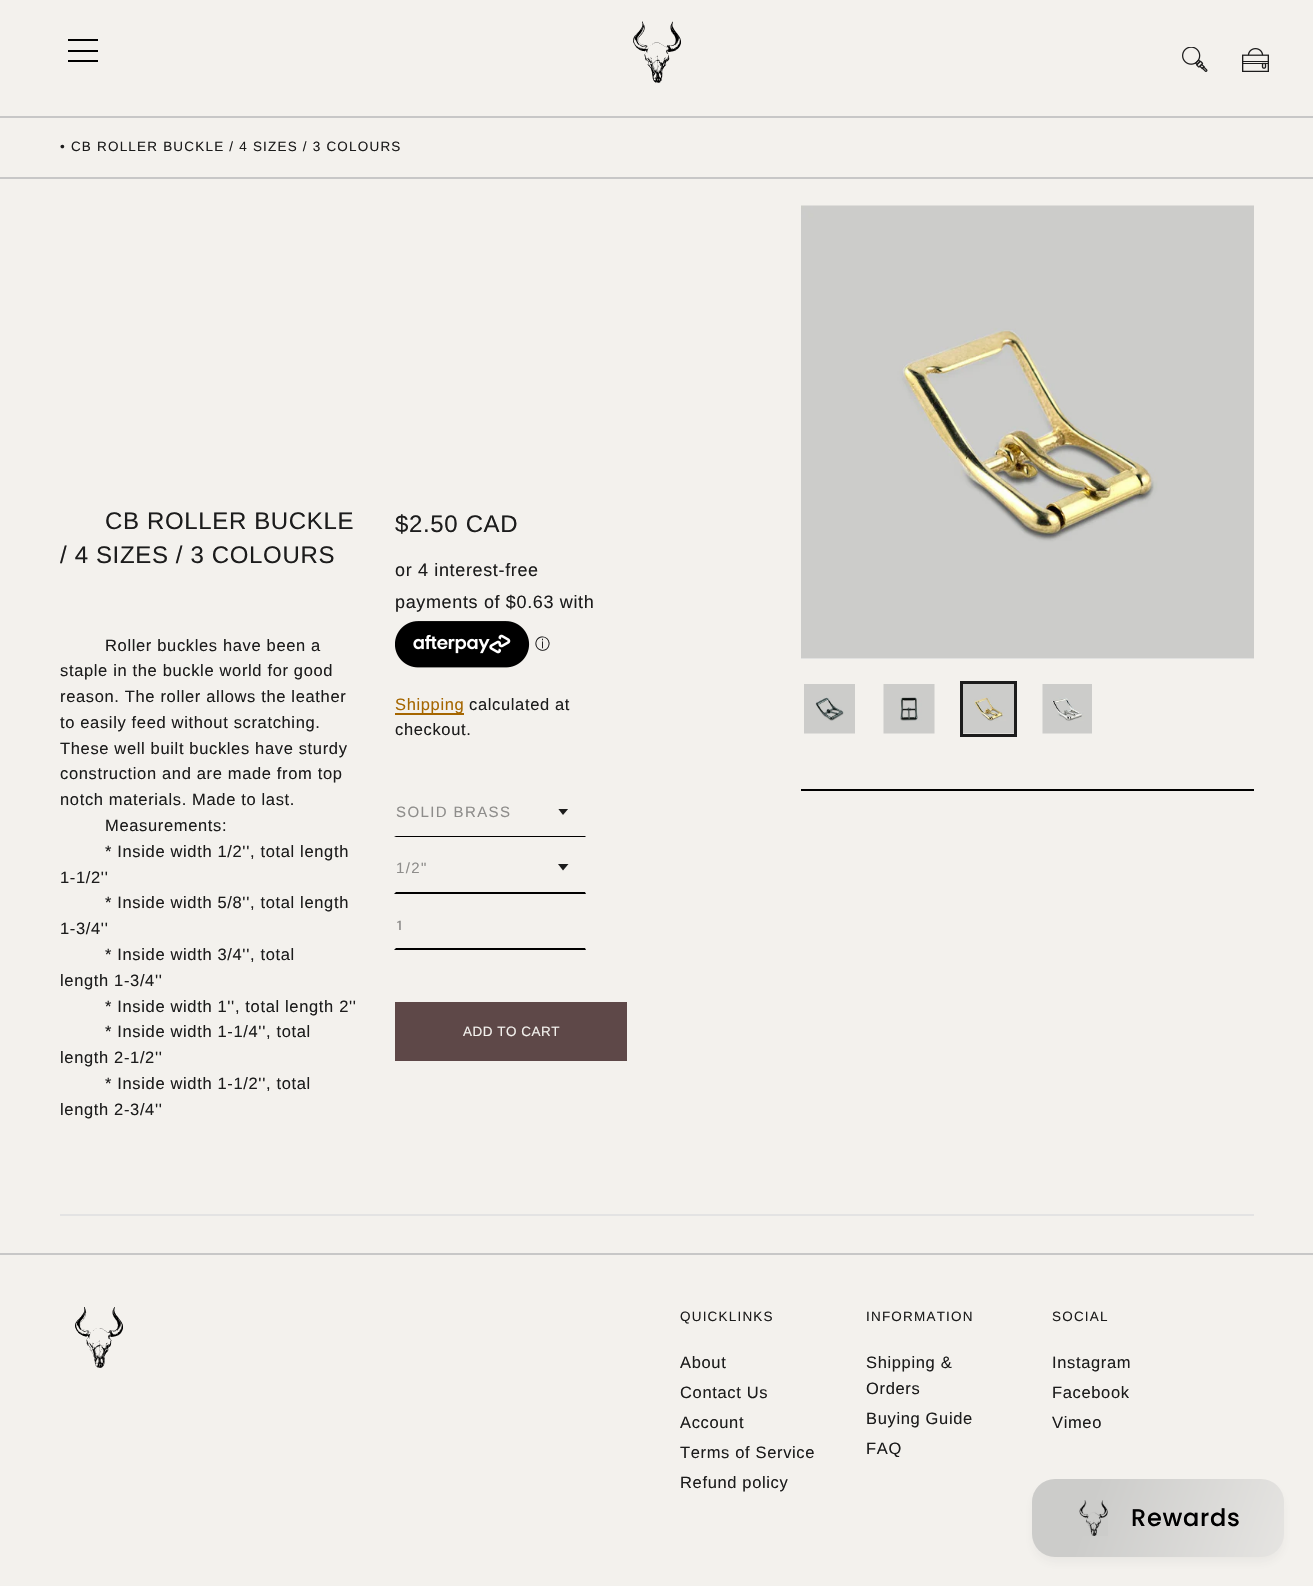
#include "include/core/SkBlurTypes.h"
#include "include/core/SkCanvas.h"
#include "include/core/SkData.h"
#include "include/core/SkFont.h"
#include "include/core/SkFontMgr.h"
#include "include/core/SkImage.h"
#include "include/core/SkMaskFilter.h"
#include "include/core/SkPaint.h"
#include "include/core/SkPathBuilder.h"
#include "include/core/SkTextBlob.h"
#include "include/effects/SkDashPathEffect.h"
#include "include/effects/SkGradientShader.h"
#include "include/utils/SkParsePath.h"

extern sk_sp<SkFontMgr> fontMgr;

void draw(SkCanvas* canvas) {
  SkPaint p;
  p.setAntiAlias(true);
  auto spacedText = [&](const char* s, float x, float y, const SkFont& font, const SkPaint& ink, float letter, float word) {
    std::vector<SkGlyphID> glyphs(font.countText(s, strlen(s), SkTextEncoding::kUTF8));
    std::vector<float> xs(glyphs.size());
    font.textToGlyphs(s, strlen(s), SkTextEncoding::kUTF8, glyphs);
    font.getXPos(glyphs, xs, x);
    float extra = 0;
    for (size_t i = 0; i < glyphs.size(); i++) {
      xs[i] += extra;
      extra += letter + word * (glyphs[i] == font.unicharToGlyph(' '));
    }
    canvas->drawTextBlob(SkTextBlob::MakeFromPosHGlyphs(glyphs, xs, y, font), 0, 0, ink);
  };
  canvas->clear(SkColorSetRGB(243, 241, 237));
  p.setColor(SK_ColorBLACK);
  canvas->drawRect(SkRect::MakeLTRB(68, 39, 98, 41), p);
  canvas->drawRect(SkRect::MakeLTRB(68, 50, 98, 52), p);
  canvas->drawRect(SkRect::MakeLTRB(68, 60, 98, 62), p);
  canvas->drawImageRect(SkImages::DeferredFromEncodedData(SkData::MakeFromFileName("images/1.png")), SkRect::MakeLTRB(633, 21, 681, 83), SkSamplingOptions());
  canvas->drawImageRect(SkImages::DeferredFromEncodedData(SkData::MakeFromFileName("images/2.png")), SkRect::MakeLTRB(1182, 47, 1208, 72), SkSamplingOptions());
  canvas->drawImageRect(SkImages::DeferredFromEncodedData(SkData::MakeFromFileName("images/3.png")), SkRect::MakeLTRB(1242, 48, 1269, 72), SkSamplingOptions());
  p.setColor(SkColorSetRGB(199, 199, 199));
  canvas->drawRect(SkRect::MakeLTRB(0, 116, 1313, 118), p);
  canvas->drawRect(SkRect::MakeLTRB(0, 177, 1313, 179), p);
  canvas->drawImageRect(SkImages::DeferredFromEncodedData(SkData::MakeFromFileName("images/4.png")), SkRect::MakeLTRB(395, 621, 530, 668), SkSamplingOptions());
  p.setColor(SkColorSetRGB(165, 102, 0));
  canvas->drawRect(SkRect::MakeLTRB(395, 713, 464, 715), p);
  canvas->save();
  canvas->clipRect(SkRect::MakeLTRB(558, 809, 570, 816));
  p.setColor(SkColorSetRGB(28, 28, 28));
  canvas->drawPath(SkPathBuilder().moveTo(558, 808.5f).lineTo(563, 815).lineTo(568.5f, 808.5f).close().detach(), p);
  canvas->restore();
  p.setColor(SK_ColorBLACK);
  canvas->drawPath(SkPathBuilder().moveTo(586, 837).lineTo(394, 837).lineTo(396, 836).lineTo(585, 836).close().detach(), p);
  p.setColor(SkColorSetRGB(28, 28, 28));
  canvas->drawPath(SkPathBuilder().moveTo(558, 864).lineTo(563, 870.5f).lineTo(568.5f, 864).close().detach(), p);
  p.setColor(SK_ColorBLACK);
  canvas->drawPath(SkPathBuilder().moveTo(586, 894).lineTo(394, 894).lineTo(396, 892).lineTo(585, 892).close().detach(), p);
  canvas->drawPath(SkPathBuilder().moveTo(586, 950).lineTo(394, 950).lineTo(396, 948).lineTo(585, 948).close().detach(), p);
  p.setColor(SkColorSetRGB(94, 72, 72));
  canvas->drawRect(SkRect::MakeLTRB(395, 1002, 627, 1061), p);
  p.setColor(SkColorSetRGB(246, 246, 246));
  canvas->drawRect(SkRect::MakeLTRB(801, 658, 1254, 659), p);
  canvas->drawImageRect(SkImages::DeferredFromEncodedData(SkData::MakeFromFileName("images/5.png")), SkRect::MakeLTRB(801, 205, 1254, 659), SkSamplingOptions());
  canvas->drawImageRect(SkImages::DeferredFromEncodedData(SkData::MakeFromFileName("images/6.png")), SkRect::MakeLTRB(804, 684, 855, 734), SkSamplingOptions());
  canvas->drawImageRect(SkImages::DeferredFromEncodedData(SkData::MakeFromFileName("images/7.png")), SkRect::MakeLTRB(883, 684, 935, 734), SkSamplingOptions());
  p.setStyle(SkPaint::kStroke_Style);
  p.setStrokeWidth(3);
  p.setColor(SkColorSetRGB(28, 28, 28));
  canvas->drawRect(SkRect::MakeLTRB(961.5f, 682.5f, 1015.5f, 735.5f), p);
  canvas->drawImageRect(SkImages::DeferredFromEncodedData(SkData::MakeFromFileName("images/8.png")), SkRect::MakeLTRB(963, 684, 1014, 734), SkSamplingOptions());
  canvas->drawImageRect(SkImages::DeferredFromEncodedData(SkData::MakeFromFileName("images/9.png")), SkRect::MakeLTRB(1042, 684, 1092, 734), SkSamplingOptions());
  p.setStyle(SkPaint::kFill_Style);
  p.setColor(SK_ColorBLACK);
  canvas->drawRect(SkRect::MakeLTRB(801, 789, 1254, 791), p);
  p.setColor(SkColorSetRGB(227, 227, 227));
  canvas->drawRect(SkRect::MakeLTRB(60, 1214, 1254, 1216), p);
  p.setColor(SkColorSetRGB(199, 199, 199));
  canvas->drawRect(SkRect::MakeLTRB(0, 1253, 1313, 1255), p);
  canvas->drawImageRect(SkImages::DeferredFromEncodedData(SkData::MakeFromFileName("images/10.png")), SkRect::MakeLTRB(75, 1307, 123, 1368), SkSamplingOptions());
  p.setColor(SkColorSetARGB(20, 68, 68, 68));
  p.setMaskFilter(SkMaskFilter::MakeBlur(kNormal_SkBlurStyle, 6));
  canvas->drawRoundRect(SkRect::MakeLTRB(1035, 1488, 1281, 1560), 20, 20, p);
  p.setMaskFilter(nullptr);
  {
    const SkColor colors[] = {SkColorSetRGB(204, 204, 202), SkColorSetRGB(243, 241, 238)};
    const float stops[] = {0.17f, 1};
    const SkPoint ends[] = {{1034, 1474}, {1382, 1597}};
    p.setShader(SkGradientShader::MakeLinear(ends, colors, stops, 2, SkTileMode::kClamp));
    p.setAlpha(255);
  }
  canvas->drawRoundRect(SkRect::MakeLTRB(1032, 1479, 1284, 1557), 23, 23, p);
  canvas->drawImageRect(SkImages::DeferredFromEncodedData(SkData::MakeFromFileName("images/11.png")), SkRect::MakeLTRB(1079, 1500, 1108, 1536), SkSamplingOptions());
  SkFont font1(fontMgr->matchFamilyStyle("Liberation Sans", SkFontStyle::Normal()), 13.5f);
  font1.setSubpixel(true);
  p.setShader(nullptr);
  p.setColor(SkColorSetRGB(28, 28, 28));
  spacedText("• CB ROLLER BUCKLE / 4 SIZES / 3 COLOURS", 60, 151, font1, p, 1.2f, 0);
  SkFont font2(fontMgr->matchFamilyStyle("Liberation Sans", SkFontStyle::Normal()), 24);
  font2.setSubpixel(true);
  spacedText("CB ROLLER BUCKLE", 105, 529, font2, p, 0.65f, 0);
  spacedText("/ 4 SIZES / 3 COLOURS", 60, 563, font2, p, 0.65f, 0);
  SkFont font3(fontMgr->matchFamilyStyle("Liberation Sans", SkFontStyle::Normal()), 16.5f);
  font3.setSubpixel(true);
  spacedText("Roller buckles have been a", 105, 651, font3, p, 0.65f, 0);
  spacedText("staple in the buckle world for good", 60, 676, font3, p, 0.65f, 0);
  spacedText("reason. The roller allows the leather", 60, 702, font3, p, 0.65f, 0);
  spacedText("to easily feed without scratching.", 60, 728, font3, p, 0.65f, 0);
  spacedText("These well built buckles have sturdy", 60, 754, font3, p, 0.65f, 0);
  spacedText("construction and are made from top", 60, 779, font3, p, 0.65f, 0);
  spacedText("notch materials. Made to last.", 60, 805, font3, p, 0.65f, 0);
  spacedText("Measurements:", 105, 831, font3, p, 0.65f, 0);
  spacedText("* Inside width 1/2'', total length", 105, 857, font3, p, 0.65f, 0);
  spacedText("1-1/2''", 60, 883, font3, p, 0.65f, 0);
  spacedText("* Inside width 5/8'', total length", 105, 908, font3, p, 0.65f, 0);
  spacedText("1-3/4''", 60, 934, font3, p, 0.65f, 0);
  spacedText("* Inside width 3/4'', total", 105, 960, font3, p, 0.65f, 0);
  spacedText("length 1-3/4''", 60, 986, font3, p, 0.65f, 0);
  spacedText("* Inside width 1'', total length 2''", 105, 1012, font3, p, 0.65f, 0);
  spacedText("* Inside width 1-1/4'', total", 105, 1037, font3, p, 0.65f, 0);
  spacedText("length 2-1/2''", 60, 1063, font3, p, 0.65f, 0);
  spacedText("* Inside width 1-1/2'', total", 105, 1089, font3, p, 0.65f, 0);
  spacedText("length 2-3/4''", 60, 1115, font3, p, 0.65f, 0);
  spacedText("$2.50 CAD", 395, 532, font2, p, 0.65f, 0);
  SkFont font4(fontMgr->matchFamilyStyle("Liberation Sans", SkFontStyle::Normal()), 18);
  font4.setSubpixel(true);
  spacedText("or 4 interest-free", 395, 576, font4, p, 0.65f, 0);
  spacedText("payments of $0.63 with", 395, 608, font4, p, 0.65f, 0);
  SkFont font5(fontMgr->matchFamilyStyle("WenQuanYi Zen Hei", SkFontStyle(500, SkFontStyle::kNormal_Width, SkFontStyle::kUpright_Slant)), 15);
  font5.setSubpixel(true);
  canvas->drawString("ⓘ", 535, 649, font5, p);
  p.setColor(SkColorSetRGB(165, 102, 0));
  spacedText("Shipping", 395, 710, font3, p, 0.65f, 0);
  p.setColor(SkColorSetRGB(28, 28, 28));
  spacedText("calculated at", 469, 710, font3, p, 0.65f, 0);
  spacedText("checkout.", 395, 735, font3, p, 0.65f, 0);
  SkFont font6(fontMgr->matchFamilyStyle("Liberation Sans", SkFontStyle::Normal()), 15);
  font6.setSubpixel(true);
  p.setColor(SkColorSetRGB(142, 141, 139));
  spacedText("SOLID BRASS", 396, 817, font6, p, 1.4f, 0);
  spacedText("1/2\"", 396, 873, font6, p, 1.4f, 0);
  SkFont font7(fontMgr->matchFamilyStyle("Inconsolata", SkFontStyle(600, SkFontStyle::kNormal_Width, SkFontStyle::kUpright_Slant)), 15);
  font7.setSubpixel(true);
  spacedText("1", 396, 930, font7, p, 1.4f, 0);
  p.setColor(SkColorSetRGB(243, 241, 237));
  spacedText("ADD TO CART", 463, 1036, font1, p, 0.5f, 0);
  p.setColor(SkColorSetRGB(28, 28, 28));
  spacedText("QUICKLINKS", 680, 1321, font1, p, 1.2f, 0);
  spacedText("About", 680, 1368, font3, p, 0.65f, 0);
  spacedText("Contact Us", 680, 1398, font3, p, 0.65f, 0);
  spacedText("Account", 680, 1428, font3, p, 0.65f, 0);
  spacedText("Terms of Service", 680, 1458, font3, p, 0.65f, 0);
  spacedText("Refund policy", 680, 1488, font3, p, 0.65f, 0);
  spacedText("INFORMATION", 866, 1321, font1, p, 1.2f, 0);
  spacedText("Shipping &", 866, 1368, font3, p, 0.65f, 0);
  spacedText("Orders", 866, 1394, font3, p, 0.65f, 0);
  spacedText("Buying Guide", 866, 1424, font3, p, 0.65f, 0);
  spacedText("FAQ", 866, 1454, font3, p, 0.65f, 0);
  spacedText("SOCIAL", 1052, 1321, font1, p, 1.2f, 0);
  spacedText("Instagram", 1052, 1368, font3, p, 0.65f, 0);
  spacedText("Facebook", 1052, 1398, font3, p, 0.65f, 0);
  spacedText("Vimeo", 1052, 1428, font3, p, 0.65f, 0);
  SkFont font8(fontMgr->matchFamilyStyle("Poppins", SkFontStyle(500, SkFontStyle::kNormal_Width, SkFontStyle::kUpright_Slant)), 24);
  font8.setSubpixel(true);
  p.setColor(SK_ColorBLACK);
  spacedText("Rewards", 1131, 1526, font8, p, 0.75f, 0);
}
